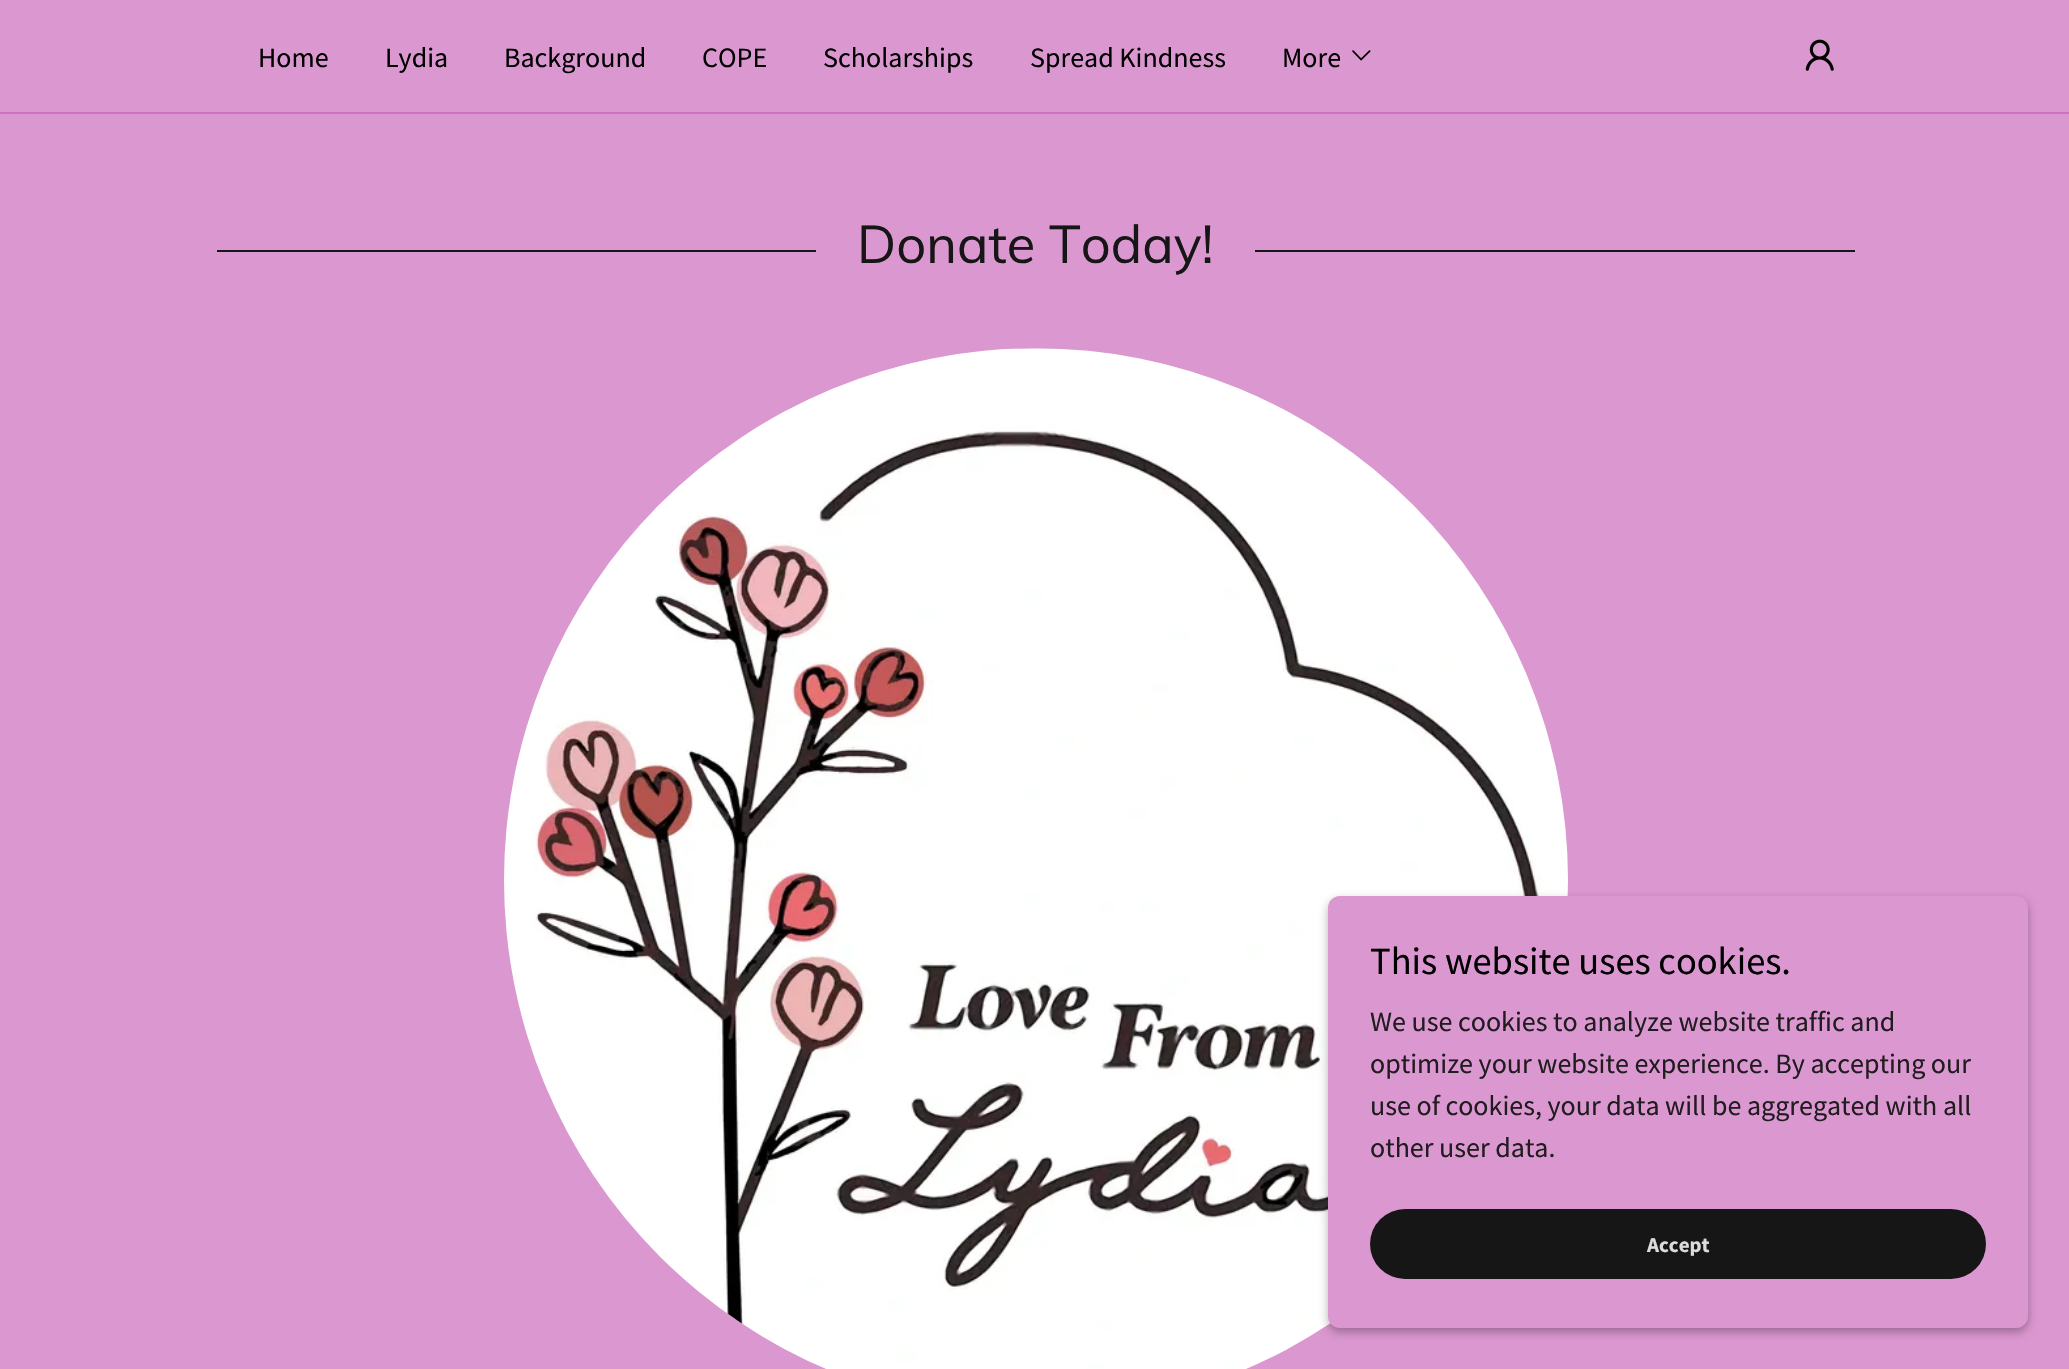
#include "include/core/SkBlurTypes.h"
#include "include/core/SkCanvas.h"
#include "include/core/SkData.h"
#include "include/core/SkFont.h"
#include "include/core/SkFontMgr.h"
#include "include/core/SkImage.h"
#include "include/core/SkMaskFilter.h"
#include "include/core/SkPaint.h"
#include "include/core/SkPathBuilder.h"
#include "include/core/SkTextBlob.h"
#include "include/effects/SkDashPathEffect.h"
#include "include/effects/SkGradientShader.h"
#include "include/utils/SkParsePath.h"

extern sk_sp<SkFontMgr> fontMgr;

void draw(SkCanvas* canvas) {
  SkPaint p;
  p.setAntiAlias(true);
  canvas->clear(SkColorSetRGB(219, 151, 208));
  canvas->drawImageRect(SkImages::DeferredFromEncodedData(SkData::MakeFromFileName("images/1.png")), SkRect::MakeLTRB(1352, 50, 1371, 61), SkSamplingOptions());
  canvas->drawImageRect(SkImages::DeferredFromEncodedData(SkData::MakeFromFileName("images/2.png")), SkRect::MakeLTRB(1805, 39, 1834, 71), SkSamplingOptions());
  p.setColor(SkColorSetRGB(207, 113, 193));
  canvas->drawRect(SkRect::MakeLTRB(0, 112, 2069, 114), p);
  p.setColor(SkColorSetRGB(22, 22, 22));
  canvas->drawRect(SkRect::MakeLTRB(217, 250, 816, 252), p);
  canvas->drawRect(SkRect::MakeLTRB(1255, 250, 1855, 252), p);
  canvas->drawImageRect(SkImages::DeferredFromEncodedData(SkData::MakeFromFileName("images/3.png")), SkRect::MakeLTRB(504, 348, 1568, 1369), SkSamplingOptions());
  p.setColor(SkColorSetARGB(77, 0, 0, 0));
  p.setMaskFilter(SkMaskFilter::MakeBlur(kNormal_SkBlurStyle, 5));
  canvas->drawRoundRect(SkRect::MakeLTRB(1328, 900, 2028, 1332), 12, 12, p);
  p.setMaskFilter(nullptr);
  p.setColor(SkColorSetRGB(219, 151, 208));
  canvas->drawRoundRect(SkRect::MakeLTRB(1328, 896, 2028, 1328), 12, 12, p);
  p.setColor(SkColorSetRGB(22, 22, 22));
  canvas->drawRoundRect(SkRect::MakeLTRB(1370, 1209, 1986, 1279), 35, 35, p);
  SkFont font1(fontMgr->matchFamilyStyle("Source Sans Pro", SkFontStyle::Normal()), 28);
  font1.setSubpixel(true);
  p.setColor(SK_ColorBLACK);
  canvas->drawString("Home", 258, 67, font1, p);
  canvas->drawString("Lydia", 385, 67, font1, p);
  canvas->drawString("Background", 504, 67, font1, p);
  canvas->drawString("COPE", 702, 67, font1, p);
  canvas->drawString("Scholarships", 823, 67, font1, p);
  canvas->drawString("Spread Kindness", 1030, 67, font1, p);
  canvas->drawString("More", 1282, 67, font1, p);
  SkFont font2(fontMgr->matchFamilyStyle("Muli", SkFontStyle::Normal()), 52.5f);
  font2.setSubpixel(true);
  p.setColor(SkColorSetRGB(22, 22, 22));
  canvas->drawString("Donate Today!", 857, 263, font2, p);
  SkFont font3(fontMgr->matchFamilyStyle("Source Sans Pro", SkFontStyle::Normal()), 38.5f);
  font3.setSubpixel(true);
  p.setColor(SK_ColorBLACK);
  canvas->drawString("This website uses cookies.", 1370, 974, font3, p);
  p.setColor(SkColorSetRGB(32, 28, 31));
  canvas->drawString("We use cookies to analyze website traffic and", 1370, 1031, font1, p);
  canvas->drawString("optimize your website experience. By accepting our", 1370, 1073, font1, p);
  canvas->drawString("use of cookies, your data will be aggregated with all", 1370, 1115, font1, p);
  canvas->drawString("other user data.", 1370, 1157, font1, p);
  SkFont font4(fontMgr->matchFamilyStyle("Source Sans Pro", SkFontStyle::Bold()), 21);
  font4.setSubpixel(true);
  p.setColor(SkColorSetRGB(219, 219, 219));
  canvas->drawString("Accept", 1647, 1252, font4, p);
}
